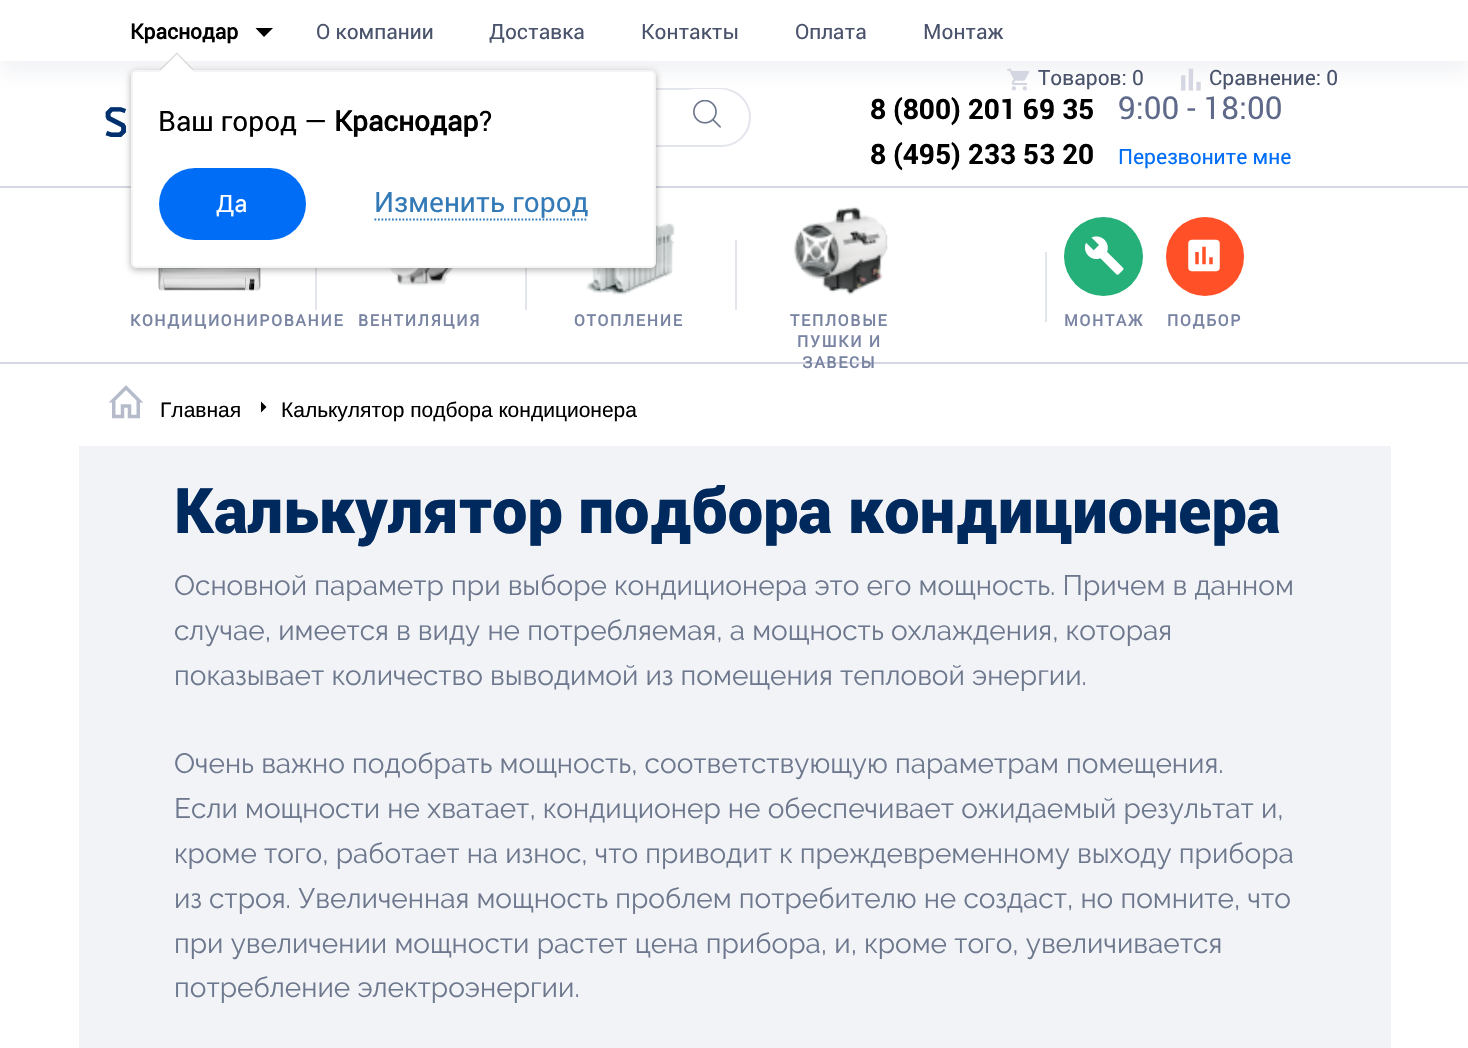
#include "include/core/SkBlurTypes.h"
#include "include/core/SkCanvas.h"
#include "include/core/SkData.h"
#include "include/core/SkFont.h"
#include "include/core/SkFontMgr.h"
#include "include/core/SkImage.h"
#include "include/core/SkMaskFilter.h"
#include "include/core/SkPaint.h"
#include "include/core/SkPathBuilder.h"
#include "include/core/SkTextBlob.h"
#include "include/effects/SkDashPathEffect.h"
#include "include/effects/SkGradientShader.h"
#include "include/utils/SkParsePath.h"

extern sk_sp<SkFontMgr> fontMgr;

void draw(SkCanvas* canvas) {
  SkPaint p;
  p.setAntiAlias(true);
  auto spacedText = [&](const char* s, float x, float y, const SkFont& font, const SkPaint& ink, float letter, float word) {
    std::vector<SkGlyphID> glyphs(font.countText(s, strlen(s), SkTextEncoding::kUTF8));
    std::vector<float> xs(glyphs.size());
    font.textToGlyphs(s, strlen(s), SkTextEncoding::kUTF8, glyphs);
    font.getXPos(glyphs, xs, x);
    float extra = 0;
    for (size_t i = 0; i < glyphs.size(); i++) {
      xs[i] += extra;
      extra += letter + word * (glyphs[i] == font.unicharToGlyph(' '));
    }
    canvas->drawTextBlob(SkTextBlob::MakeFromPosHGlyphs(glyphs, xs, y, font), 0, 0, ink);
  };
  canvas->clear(SK_ColorWHITE);
  canvas->save();
  canvas->clipRect(SkRect::MakeLTRB(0, 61, 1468, 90));
  p.setColor(SkColorSetRGB(242, 243, 246));
  p.setMaskFilter(SkMaskFilter::MakeBlur(kNormal_SkBlurStyle, 9));
  canvas->drawRect(SkRect::MakeLTRB(0, 11, 1468, 72), p);
  p.setMaskFilter(nullptr);
  canvas->restore();
  p.setColor(SK_ColorBLACK);
  canvas->drawPath(SkPathBuilder().moveTo(255.5f, 28).lineTo(264, 37).lineTo(273, 28).close().detach(), p);
  p.setStyle(SkPaint::kStroke_Style);
  p.setStrokeWidth(2);
  p.setColor(SkColorSetRGB(227, 229, 236));
  canvas->drawRoundRect(SkRect::MakeLTRB(325, 89, 750, 146), 28.5f, 28.5f, p);
  p.setStyle(SkPaint::kFill_Style);
  {
    const SkColor colors[] = {SkColorSetARGB(0, 255, 255, 255), SK_ColorWHITE, SK_ColorWHITE};
    const float stops[] = {0, 0.36f, 0.37f};
    const SkPoint ends[] = {{667, 117}, {747, 117}};
    p.setShader(SkGradientShader::MakeLinear(ends, colors, stops, 3, SkTileMode::kClamp));
    p.setAlpha(255);
  }
  canvas->drawRoundRect(SkRect::MakeLTRB(667, 89, 747, 145), 28, 28, p);
  p.setShader(nullptr);
  p.setColor(SkColorSetRGB(212, 215, 225));
  canvas->drawRect(SkRect::MakeLTRB(0, 186, 1468, 188), p);
  canvas->drawImageRect(SkImages::DeferredFromEncodedData(SkData::MakeFromFileName("images/4.png")), SkRect::MakeLTRB(158, 268, 261, 291), SkSamplingOptions());
  p.setColor(SkColorSetRGB(227, 229, 236));
  canvas->drawRect(SkRect::MakeLTRB(315, 268, 317, 310), p);
  canvas->drawImageRect(SkImages::DeferredFromEncodedData(SkData::MakeFromFileName("images/5.png")), SkRect::MakeLTRB(388, 268, 454, 286), SkSamplingOptions());
  canvas->drawRect(SkRect::MakeLTRB(525, 268, 527, 310), p);
  canvas->drawImageRect(SkImages::DeferredFromEncodedData(SkData::MakeFromFileName("images/6.png")), SkRect::MakeLTRB(586, 223, 675, 295), SkSamplingOptions());
  p.setColor(SkColorSetARGB(77, 0, 0, 0));
  p.setMaskFilter(SkMaskFilter::MakeBlur(kNormal_SkBlurStyle, 3.5f));
  canvas->drawRoundRect(SkRect::MakeLTRB(131, 72, 656, 270), 5, 5, p);
  p.setMaskFilter(nullptr);
  p.setColor(SK_ColorWHITE);
  canvas->drawRoundRect(SkRect::MakeLTRB(132, 71, 655, 267), 4, 4, p);
  p.setStyle(SkPaint::kStroke_Style);
  p.setColor(SkColorSetRGB(244, 244, 244));
  canvas->drawRoundRect(SkRect::MakeLTRB(132, 71, 655, 267), 4, 4, p);
  p.setStyle(SkPaint::kFill_Style);
  p.setColor(SkColorSetRGB(214, 214, 214));
  canvas->drawPath(SkPathBuilder().moveTo(194, 70).lineTo(159, 70).lineTo(177, 52.5f).close().detach(), p);
  p.setColor(SK_ColorWHITE);
  canvas->drawPath(SkPathBuilder().moveTo(194, 72).lineTo(159, 72).lineTo(177, 54).close().detach(), p);
  p.setColor(SkColorSetRGB(0, 109, 247));
  canvas->drawRoundRect(SkRect::MakeLTRB(159, 168, 306, 240), 36, 36, p);
  p.setStyle(SkPaint::kStroke_Style);
  p.setStrokeWidth(1.8f);
  p.setColor(SkColorSetRGB(51, 122, 183));
  p.setPathEffect(SkDashPathEffect::Make({{1.75f, 1.75f}}, 0));
  canvas->drawPath(SkPathBuilder().moveTo(374.5f, 219.5f).lineTo(588, 219.5f).detach(), p);
  p.setPathEffect(nullptr);
  canvas->drawImageRect(SkImages::DeferredFromEncodedData(SkData::MakeFromFileName("images/1.png")), SkRect::MakeLTRB(1007, 68, 1029, 91), SkSamplingOptions());
  canvas->drawImageRect(SkImages::DeferredFromEncodedData(SkData::MakeFromFileName("images/2.png")), SkRect::MakeLTRB(1181, 68, 1201, 91), SkSamplingOptions());
  canvas->drawImageRect(SkImages::DeferredFromEncodedData(SkData::MakeFromFileName("images/3.png")), SkRect::MakeLTRB(693, 100, 721, 128), SkSamplingOptions());
  p.setStyle(SkPaint::kFill_Style);
  p.setColor(SkColorSetRGB(212, 215, 225));
  canvas->drawRect(SkRect::MakeLTRB(0, 362, 1468, 364), p);
  p.setColor(SkColorSetRGB(227, 229, 236));
  canvas->drawRect(SkRect::MakeLTRB(735, 240, 737, 310), p);
  canvas->drawImageRect(SkImages::DeferredFromEncodedData(SkData::MakeFromFileName("images/7.png")), SkRect::MakeLTRB(794, 206, 888, 295), SkSamplingOptions());
  canvas->drawRect(SkRect::MakeLTRB(1045, 252, 1047, 322), p);
  p.setColor(SkColorSetRGB(37, 175, 121));
  canvas->drawCircle(1103.5f, 256.5f, 39.5f, p);
  canvas->drawImageRect(SkImages::DeferredFromEncodedData(SkData::MakeFromFileName("images/8.png")), SkRect::MakeLTRB(1084, 236, 1124, 275), SkSamplingOptions());
  p.setColor(SkColorSetRGB(255, 80, 39));
  canvas->drawRoundRect(SkRect::MakeLTRB(1166, 217, 1244, 296), 39, 39, p);
  canvas->drawImageRect(SkImages::DeferredFromEncodedData(SkData::MakeFromFileName("images/9.png")), SkRect::MakeLTRB(1188, 239, 1220, 272), SkSamplingOptions());
  canvas->drawImageRect(SkImages::DeferredFromEncodedData(SkData::MakeFromFileName("images/10.png")), SkRect::MakeLTRB(108, 385, 144, 419), SkSamplingOptions());
  p.setColor(SK_ColorBLACK);
  canvas->drawPath(SkPathBuilder().moveTo(261, 412.5f).lineTo(266.5f, 407).lineTo(261, 401.5f).close().detach(), p);
  p.setColor(SkColorSetRGB(242, 243, 246));
  canvas->drawRect(SkRect::MakeLTRB(79, 446, 1391, 1048), p);
  SkFont font1(fontMgr->matchFamilyStyle("Roboto", SkFontStyle::Bold()), 21);
  font1.setSubpixel(true);
  p.setColor(SK_ColorBLACK);
  canvas->drawString("Краснодар", 130, 39, font1, p);
  SkFont font2(fontMgr->matchFamilyStyle("Roboto", SkFontStyle::Normal()), 21);
  font2.setSubpixel(true);
  p.setColor(SkColorSetRGB(74, 83, 108));
  canvas->drawString("О компании", 316, 39, font2, p);
  canvas->drawString("Доставка", 489, 39, font2, p);
  canvas->drawString("Контакты", 641, 39, font2, p);
  canvas->drawString("Оплата", 795, 39, font2, p);
  canvas->drawString("Монтаж", 923, 39, font2, p);
  SkFont font3(fontMgr->matchFamilyStyle("Roboto", SkFontStyle::Normal()), 28);
  font3.setSubpixel(true);
  p.setColor(SK_ColorBLACK);
  canvas->drawString("Ваш город —", 158, 131, font3, p);
  SkFont font4(fontMgr->matchFamilyStyle("Roboto", SkFontStyle::Bold()), 28);
  font4.setSubpixel(true);
  canvas->drawString("Краснодар", 334, 131, font4, p);
  canvas->drawString("?", 479, 131, font3, p);
  SkFont font5(fontMgr->matchFamilyStyle("Roboto", SkFontStyle::Normal()), 24);
  font5.setSubpixel(true);
  p.setColor(SK_ColorWHITE);
  canvas->drawString("Да", 216, 212, font5, p);
  p.setColor(SkColorSetRGB(51, 122, 183));
  canvas->drawString("Изменить город", 374, 212, font3, p);
  p.setColor(SkColorSetRGB(74, 83, 108));
  canvas->drawString("Товаров: 0", 1038, 85, font2, p);
  canvas->drawString("Сравнение: 0", 1209, 85, font2, p);
  SkFont font6(fontMgr->matchFamilyStyle("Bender", SkFontStyle::Bold()), 42);
  font6.setSubpixel(true);
  p.setColor(SkColorSetRGB(0, 48, 109));
  canvas->drawString("S", 104, 137, font6, p);
  SkFont font7(fontMgr->matchFamilyStyle("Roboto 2", SkFontStyle::Bold()), 28);
  font7.setSubpixel(true);
  p.setColor(SK_ColorBLACK);
  canvas->drawString("8 (800) 201 69 35", 870, 119, font7, p);
  canvas->drawString("8 (495) 233 53 20", 870, 164, font7, p);
  SkFont font8(fontMgr->matchFamilyStyle("Roboto", SkFontStyle::Normal()), 31.5f);
  font8.setSubpixel(true);
  p.setColor(SkColorSetRGB(95, 106, 138));
  canvas->drawString("9:00 - 18:00", 1118, 119, font8, p);
  p.setColor(SkColorSetRGB(0, 109, 247));
  canvas->drawString("Перезвоните мне", 1118, 164, font2, p);
  SkFont font9(fontMgr->matchFamilyStyle("Roboto", SkFontStyle::Bold()), 15.75f);
  font9.setSubpixel(true);
  p.setColor(SkColorSetRGB(121, 132, 163));
  spacedText("КОНДИЦИОНИРОВАНИЕ", 130, 326, font9, p, 1.75f, 0);
  spacedText("ВЕНТИЛЯЦИЯ", 358, 326, font9, p, 1.75f, 0);
  spacedText("ОТОПЛЕНИЕ", 574, 326, font9, p, 1.75f, 0);
  spacedText("ТЕПЛОВЫЕ", 790, 326, font9, p, 1.75f, 0);
  spacedText("ПУШКИ И", 797, 347, font9, p, 1.75f, 0);
  spacedText("ЗАВЕСЫ", 802, 368, font9, p, 1.75f, 0);
  spacedText("МОНТАЖ", 1064, 326, font9, p, 1.75f, 0);
  spacedText("ПОДБОР", 1167, 326, font9, p, 1.75f, 0);
  SkFont font10(fontMgr->matchFamilyStyle("Liberation Sans", SkFontStyle::Normal()), 21);
  font10.setSubpixel(true);
  p.setColor(SK_ColorBLACK);
  canvas->drawString("Главная", 160, 417, font10, p);
  canvas->drawString("Калькулятор подбора кондиционера", 281, 417, font10, p);
  SkFont font11(fontMgr->matchFamilyStyle("Roboto", SkFontStyle(900, SkFontStyle::kNormal_Width, SkFontStyle::kUpright_Slant)), 63);
  font11.setSubpixel(true);
  p.setColor(SkColorSetRGB(0, 41, 94));
  canvas->drawString("Калькулятор подбора кондиционера", 174, 533, font11, p);
  SkFont font12(fontMgr->matchFamilyStyle("Raleway", SkFontStyle::Normal()), 28);
  font12.setSubpixel(true);
  p.setColor(SkColorSetRGB(109, 120, 142));
  canvas->drawString("Основной параметр при выборе кондиционера это его мощность. Причем в данном", 174, 595, font12, p);
  canvas->drawString("случае, имеется в виду не потребляемая, а мощность охлаждения, которая", 174, 640, font12, p);
  canvas->drawString("показывает количество выводимой из помещения тепловой энергии.", 174, 685, font12, p);
  canvas->drawString("Очень важно подобрать мощность, соответствующую параметрам помещения.", 174, 773, font12, p);
  canvas->drawString("Если мощности не хватает, кондиционер не обеспечивает ожидаемый результат и,", 174, 818, font12, p);
  canvas->drawString("кроме того, работает на износ, что приводит к преждевременному выходу прибора", 174, 863, font12, p);
  canvas->drawString("из строя. Увеличенная мощность проблем потребителю не создаст, но помните, что", 174, 908, font12, p);
  canvas->drawString("при увеличении мощности растет цена прибора, и, кроме того, увеличивается", 174, 953, font12, p);
  canvas->drawString("потребление электроэнергии.", 174, 997, font12, p);
}
